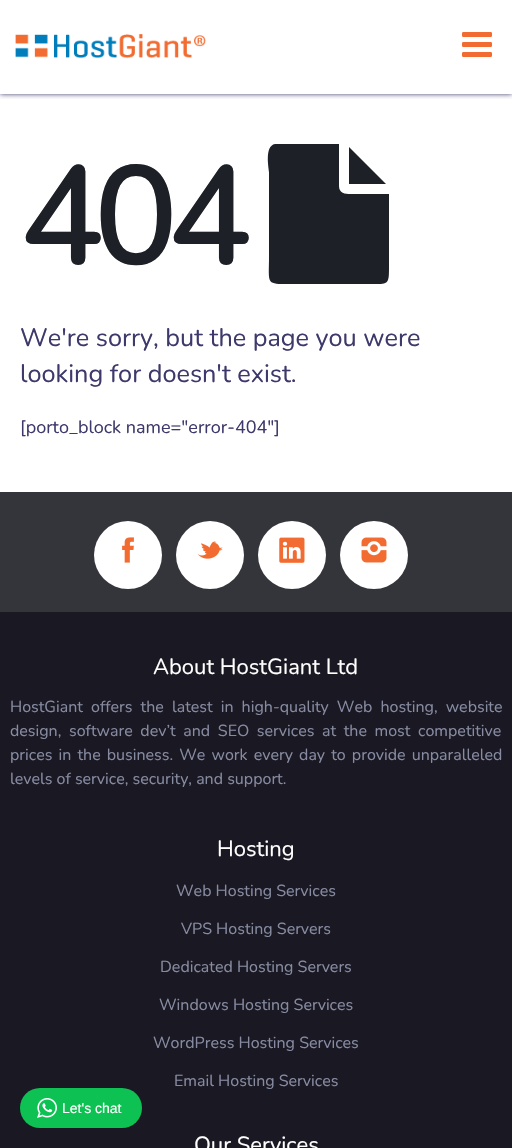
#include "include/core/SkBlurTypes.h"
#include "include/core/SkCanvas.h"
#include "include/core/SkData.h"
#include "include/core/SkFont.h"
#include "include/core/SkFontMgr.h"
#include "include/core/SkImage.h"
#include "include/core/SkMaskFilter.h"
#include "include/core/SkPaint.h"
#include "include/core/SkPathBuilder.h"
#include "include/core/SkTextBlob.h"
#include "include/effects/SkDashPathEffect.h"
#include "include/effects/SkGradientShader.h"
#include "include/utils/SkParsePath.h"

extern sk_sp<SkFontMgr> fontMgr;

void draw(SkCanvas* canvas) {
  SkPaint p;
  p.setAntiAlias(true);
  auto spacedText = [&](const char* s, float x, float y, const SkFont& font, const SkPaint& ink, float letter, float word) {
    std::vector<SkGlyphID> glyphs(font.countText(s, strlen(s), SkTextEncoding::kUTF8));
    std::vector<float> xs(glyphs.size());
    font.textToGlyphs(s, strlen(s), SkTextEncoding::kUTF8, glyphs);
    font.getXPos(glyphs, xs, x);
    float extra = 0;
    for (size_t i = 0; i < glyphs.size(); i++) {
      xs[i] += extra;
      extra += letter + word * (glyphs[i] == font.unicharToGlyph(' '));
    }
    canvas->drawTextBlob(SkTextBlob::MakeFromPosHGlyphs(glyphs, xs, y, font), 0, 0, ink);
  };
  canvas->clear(SK_ColorWHITE);
  canvas->save();
  canvas->clipRect(SkRect::MakeLTRB(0, 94, 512, 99));
  p.setColor(SkColorSetRGB(62, 57, 107));
  p.setMaskFilter(SkMaskFilter::MakeBlur(kNormal_SkBlurStyle, 2.5f));
  canvas->drawRect(SkRect::MakeLTRB(0, 0, 512, 94), p);
  p.setMaskFilter(nullptr);
  canvas->restore();
  canvas->drawImageRect(SkImages::DeferredFromEncodedData(SkData::MakeFromFileName("images/1.png")), SkRect::MakeLTRB(15, 34, 206, 59), SkSamplingOptions());
  canvas->drawImageRect(SkImages::DeferredFromEncodedData(SkData::MakeFromFileName("images/2.png")), SkRect::MakeLTRB(462, 32, 492, 57), SkSamplingOptions());
  p.setColor(SkColorSetRGB(29, 33, 39));
  canvas->drawPath(SkPathBuilder().moveTo(349, 184).lineTo(349, 147).lineTo(357, 155).lineTo(386, 184).close().moveTo(339, 186).cubicTo(339, 195, 348, 194, 354, 194).lineTo(389, 194).lineTo(389, 263).cubicTo(389, 287, 390, 284, 364, 284).lineTo(294, 284).cubicTo(265, 284, 269, 286, 269, 256).lineTo(269, 172).cubicTo(269, 169, 264, 146, 275, 144).lineTo(339, 144).close().detach(), p);
  p.setColor(SkColorSetRGB(52, 53, 59));
  canvas->drawRect(SkRect::MakeLTRB(0, 492, 512, 612), p);
  p.setColor(SK_ColorWHITE);
  canvas->drawCircle(128, 555, 34, p);
  canvas->drawImageRect(SkImages::DeferredFromEncodedData(SkData::MakeFromFileName("images/3.png")), SkRect::MakeLTRB(122, 537, 134, 563), SkSamplingOptions());
  canvas->drawCircle(210, 555, 34, p);
  canvas->drawImageRect(SkImages::DeferredFromEncodedData(SkData::MakeFromFileName("images/4.png")), SkRect::MakeLTRB(197, 541, 223, 559), SkSamplingOptions());
  canvas->drawCircle(292, 555, 34, p);
  canvas->drawImageRect(SkImages::DeferredFromEncodedData(SkData::MakeFromFileName("images/5.png")), SkRect::MakeLTRB(279, 537, 305, 563), SkSamplingOptions());
  canvas->drawCircle(374, 555, 34, p);
  canvas->drawImageRect(SkImages::DeferredFromEncodedData(SkData::MakeFromFileName("images/6.png")), SkRect::MakeLTRB(361, 537, 387, 563), SkSamplingOptions());
  p.setColor(SkColorSetRGB(26, 24, 35));
  canvas->drawRect(SkRect::MakeLTRB(0, 612, 512, 1148), p);
  p.setColor(SkColorSetRGB(13, 193, 82));
  canvas->drawRoundRect(SkRect::MakeLTRB(20, 1088, 142, 1128), 20, 20, p);
  canvas->drawImageRect(SkImages::DeferredFromEncodedData(SkData::MakeFromFileName("images/7.png")), SkRect::MakeLTRB(37, 1098, 57, 1118), SkSamplingOptions());
  SkFont font1(fontMgr->matchFamilyStyle("Nunito", SkFontStyle(600, SkFontStyle::kNormal_Width, SkFontStyle::kUpright_Slant)), 140);
  font1.setSubpixel(true);
  p.setColor(SkColorSetRGB(29, 33, 39));
  spacedText("404", 20, 264, font1, p, -10, 0);
  SkFont font2(fontMgr->matchFamilyStyle("Nunito", SkFontStyle::Normal()), 25.25f);
  font2.setSubpixel(true);
  p.setColor(SkColorSetRGB(62, 57, 107));
  canvas->drawString("We're sorry, but the page you were", 20, 346, font2, p);
  canvas->drawString("looking for doesn't exist.", 20, 382, font2, p);
  SkFont font3(fontMgr->matchFamilyStyle("Nunito", SkFontStyle::Normal()), 18);
  font3.setSubpixel(true);
  canvas->drawString("[porto_block name=\"error-404\"]", 20, 433, font3, p);
  SkFont font4(fontMgr->matchFamilyStyle("Nunito", SkFontStyle::Normal()), 22);
  font4.setSubpixel(true);
  p.setColor(SK_ColorWHITE);
  canvas->drawString("About HostGiant Ltd", 153, 674, font4, p);
  SkFont font5(fontMgr->matchFamilyStyle("Nunito", SkFontStyle::Normal()), 16);
  font5.setSubpixel(true);
  p.setColor(SkColorSetRGB(134, 139, 161));
  spacedText("HostGiant offers the latest in high-quality Web hosting, website", 10, 712, font5, p, 0, 4);
  spacedText("design, software dev’t and SEO services at the most competitive", 10, 736, font5, p, 0, 3.5f);
  spacedText("prices in the business. We work every day to provide unparalleled", 10, 760, font5, p, 0, 2);
  canvas->drawString("levels of service, security, and support.", 10, 784, font5, p);
  p.setColor(SK_ColorWHITE);
  canvas->drawString("Hosting", 217, 856, font4, p);
  p.setColor(SkColorSetRGB(134, 139, 161));
  canvas->drawString("Web Hosting Services", 176, 896, font5, p);
  canvas->drawString("VPS Hosting Servers", 181, 934, font5, p);
  canvas->drawString("Dedicated Hosting Servers", 160, 972, font5, p);
  canvas->drawString("Windows Hosting Services", 159, 1010, font5, p);
  canvas->drawString("WordPress Hosting Services", 153, 1048, font5, p);
  canvas->drawString("Email Hosting Services", 174, 1086, font5, p);
  p.setColor(SK_ColorWHITE);
  canvas->drawString("Our Services", 194, 1152, font4, p);
  SkFont font6(fontMgr->matchFamilyStyle("Liberation Sans", SkFontStyle::Normal()), 14);
  font6.setSubpixel(true);
  canvas->drawString("Let's chat", 62, 1113, font6, p);
}
